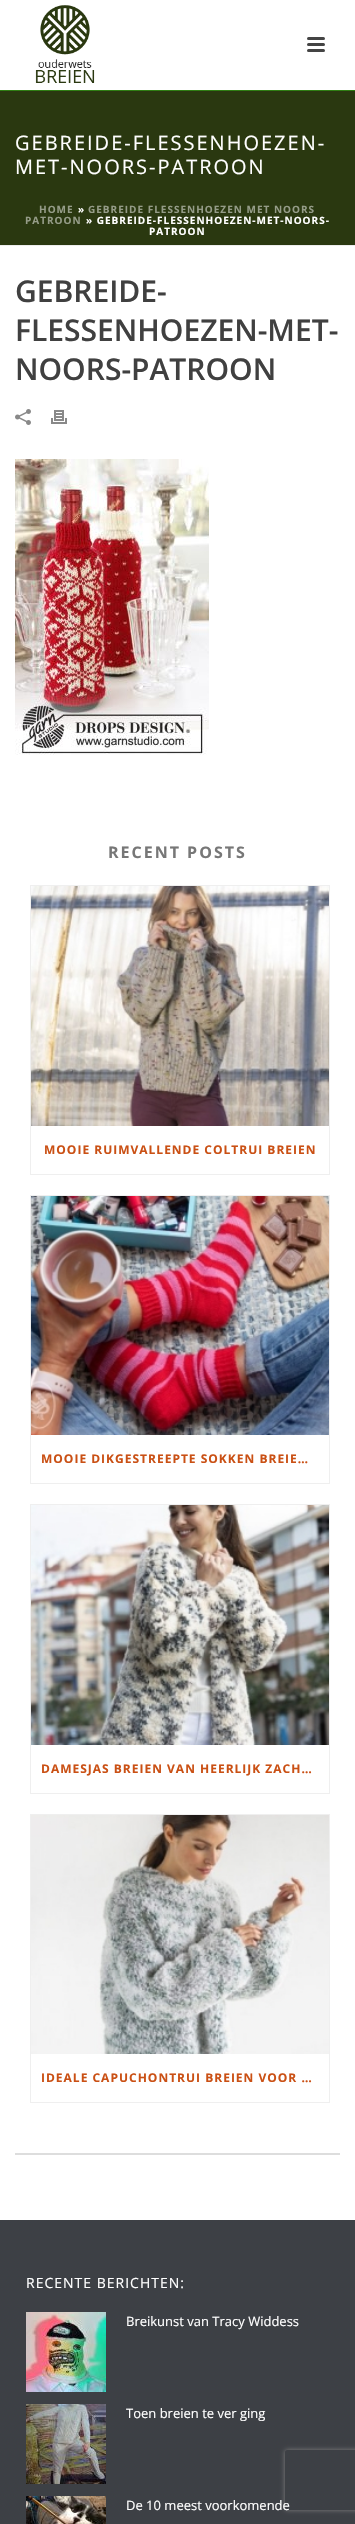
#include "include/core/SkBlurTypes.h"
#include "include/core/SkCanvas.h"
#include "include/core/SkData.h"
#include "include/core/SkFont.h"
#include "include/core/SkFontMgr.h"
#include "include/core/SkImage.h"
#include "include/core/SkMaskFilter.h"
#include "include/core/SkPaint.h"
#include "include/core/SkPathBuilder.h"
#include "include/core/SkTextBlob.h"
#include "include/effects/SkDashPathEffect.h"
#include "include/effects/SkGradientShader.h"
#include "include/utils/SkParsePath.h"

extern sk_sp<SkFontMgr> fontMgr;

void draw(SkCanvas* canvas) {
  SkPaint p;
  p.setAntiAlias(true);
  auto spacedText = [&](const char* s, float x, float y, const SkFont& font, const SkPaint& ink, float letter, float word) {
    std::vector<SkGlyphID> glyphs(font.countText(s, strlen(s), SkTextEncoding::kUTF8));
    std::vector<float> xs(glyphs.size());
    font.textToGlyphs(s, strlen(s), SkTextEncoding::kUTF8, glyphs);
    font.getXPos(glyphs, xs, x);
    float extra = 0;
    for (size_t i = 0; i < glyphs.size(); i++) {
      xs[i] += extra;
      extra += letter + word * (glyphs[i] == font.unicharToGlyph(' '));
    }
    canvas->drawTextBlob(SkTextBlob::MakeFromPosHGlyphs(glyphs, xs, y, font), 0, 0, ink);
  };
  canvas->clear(SK_ColorWHITE);
  p.setColor(SkColorSetRGB(42, 56, 16));
  canvas->drawRect(SkRect::MakeLTRB(0, 91, 355, 245), p);
  p.setColor(SkColorSetRGB(237, 237, 237));
  canvas->drawRect(SkRect::MakeLTRB(0, 245, 355, 246), p);
  p.setColor(SkColorSetRGB(47, 126, 19));
  canvas->drawRect(SkRect::MakeLTRB(0, 90, 355, 91), p);
  canvas->drawImageRect(SkImages::DeferredFromEncodedData(SkData::MakeFromFileName("images/1.png")), SkRect::MakeLTRB(35, 5, 95, 83), SkSamplingOptions());
  p.setColor(SkColorSetRGB(68, 68, 68));
  canvas->drawRoundRect(SkRect::MakeLTRB(307, 37, 325, 40), 1.5f, 1.5f, p);
  canvas->drawRoundRect(SkRect::MakeLTRB(307, 43, 325, 46), 1.5f, 1.5f, p);
  canvas->drawRoundRect(SkRect::MakeLTRB(307, 49, 325, 52), 1.5f, 1.5f, p);
  canvas->drawImageRect(SkImages::DeferredFromEncodedData(SkData::MakeFromFileName("images/2.png")), SkRect::MakeLTRB(15, 409, 31, 425), SkSamplingOptions());
  canvas->drawImageRect(SkImages::DeferredFromEncodedData(SkData::MakeFromFileName("images/3.png")), SkRect::MakeLTRB(51, 410, 67, 424), SkSamplingOptions());
  canvas->drawImageRect(SkImages::DeferredFromEncodedData(SkData::MakeFromFileName("images/4.png")), SkRect::MakeLTRB(15, 459, 209, 755), SkSamplingOptions());
  p.setColor(SkColorSetRGB(221, 221, 221));
  canvas->drawRect(SkRect::MakeLTRB(15, 2153, 340, 2155), p);
  p.setStyle(SkPaint::kStroke_Style);
  p.setStrokeWidth(1);
  p.setColor(SkColorSetRGB(239, 239, 239));
  canvas->drawRect(SkRect::MakeLTRB(30.5f, 885.5f, 329.5f, 1174.5f), p);
  canvas->drawImageRect(SkImages::DeferredFromEncodedData(SkData::MakeFromFileName("images/5.png")), SkRect::MakeLTRB(31, 886, 329, 1126), SkSamplingOptions());
  canvas->drawRect(SkRect::MakeLTRB(30.5f, 1195.5f, 329.5f, 1483.5f), p);
  canvas->drawImageRect(SkImages::DeferredFromEncodedData(SkData::MakeFromFileName("images/6.png")), SkRect::MakeLTRB(31, 1196, 329, 1435), SkSamplingOptions());
  canvas->drawRect(SkRect::MakeLTRB(30.5f, 1504.5f, 329.5f, 1793.5f), p);
  canvas->drawImageRect(SkImages::DeferredFromEncodedData(SkData::MakeFromFileName("images/7.png")), SkRect::MakeLTRB(31, 1505, 329, 1745), SkSamplingOptions());
  canvas->drawRect(SkRect::MakeLTRB(30.5f, 1814.5f, 329.5f, 2102.5f), p);
  canvas->drawImageRect(SkImages::DeferredFromEncodedData(SkData::MakeFromFileName("images/8.png")), SkRect::MakeLTRB(31, 1815, 329, 2054), SkSamplingOptions());
  p.setStyle(SkPaint::kFill_Style);
  p.setColor(SkColorSetRGB(61, 64, 69));
  canvas->drawRect(SkRect::MakeLTRB(0, 2220, 355, 2524), p);
  canvas->drawImageRect(SkImages::DeferredFromEncodedData(SkData::MakeFromFileName("images/9.png")), SkRect::MakeLTRB(26, 2312, 106, 2392), SkSamplingOptions());
  canvas->drawImageRect(SkImages::DeferredFromEncodedData(SkData::MakeFromFileName("images/10.png")), SkRect::MakeLTRB(26, 2404, 106, 2484), SkSamplingOptions());
  canvas->drawImageRect(SkImages::DeferredFromEncodedData(SkData::MakeFromFileName("images/11.png")), SkRect::MakeLTRB(26, 2496, 106, 2524), SkSamplingOptions());
  canvas->save();
  canvas->clipPath(SkPathBuilder(SkPathFillType::kEvenOdd).moveTo(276, 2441).lineTo(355, 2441).lineTo(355, 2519).lineTo(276, 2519).close().moveTo(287, 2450).lineTo(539, 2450).cubicTo(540, 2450, 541, 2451, 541, 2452).lineTo(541, 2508).cubicTo(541, 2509, 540, 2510, 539, 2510).lineTo(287, 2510).cubicTo(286, 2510, 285, 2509, 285, 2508).lineTo(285, 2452).cubicTo(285, 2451, 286, 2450, 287, 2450).close().detach(), true);
  p.setColor(SkColorSetRGB(128, 128, 128));
  p.setMaskFilter(SkMaskFilter::MakeBlur(kNormal_SkBlurStyle, 2.5f));
  canvas->drawRoundRect(SkRect::MakeLTRB(285, 2450, 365, 2510), 2, 2, p);
  p.setMaskFilter(nullptr);
  canvas->restore();
  SkFont font1(fontMgr->matchFamilyStyle("Open Sans", SkFontStyle::Normal()), 20);
  font1.setSubpixel(true);
  p.setColor(SK_ColorWHITE);
  spacedText("GEBREIDE-FLESSENHOEZEN-", 15, 150, font1, p, 2, 0);
  spacedText("MET-NOORS-PATROON", 15, 174, font1, p, 2, 0);
  SkFont font2(fontMgr->matchFamilyStyle("Open Sans", SkFontStyle::Bold()), 10);
  font2.setSubpixel(true);
  p.setColor(SkColorSetRGB(149, 156, 136));
  spacedText("HOME", 39, 213, font2, p, 1, 0);
  p.setColor(SK_ColorWHITE);
  spacedText("»", 78, 213, font2, p, 1, 0);
  p.setColor(SkColorSetRGB(149, 156, 136));
  spacedText("GEBREIDE FLESSENHOEZEN MET NOORS", 88, 213, font2, p, 1, 0);
  spacedText("PATROON", 25, 224, font2, p, 1, 0);
  p.setColor(SK_ColorWHITE);
  spacedText("» GEBREIDE-FLESSENHOEZEN-MET-NOORS-", 86, 224, font2, p, 1, 0);
  spacedText("PATROON", 149, 235, font2, p, 1, 0);
  SkFont font3(fontMgr->matchFamilyStyle("Open Sans", SkFontStyle(600, SkFontStyle::kNormal_Width, SkFontStyle::kUpright_Slant)), 30);
  font3.setSubpixel(true);
  p.setColor(SkColorSetRGB(64, 64, 64));
  canvas->drawString("GEBREIDE-", 15, 302, font3, p);
  canvas->drawString("FLESSENHOEZEN-MET-", 15, 341, font3, p);
  canvas->drawString("NOORS-PATROON", 15, 380, font3, p);
  SkFont font4(fontMgr->matchFamilyStyle("Open Sans", SkFontStyle::Bold()), 16);
  font4.setSubpixel(true);
  p.setColor(SkColorSetRGB(119, 119, 119));
  spacedText("RECENT POSTS", 108, 858, font4, p, 2, 0);
  SkFont font5(fontMgr->matchFamilyStyle("Open Sans", SkFontStyle::Bold()), 12);
  font5.setSubpixel(true);
  p.setColor(SkColorSetRGB(202, 80, 20));
  spacedText("MOOIE RUIMVALLENDE COLTRUI BREIEN", 44, 1154, font5, p, 1, 0);
  spacedText("MOOIE DIKGESTREEPTE SOKKEN BREIE…", 41, 1463, font5, p, 1, 0);
  spacedText("DAMESJAS BREIEN VAN HEERLIJK ZACH…", 41, 1773, font5, p, 1, 0);
  spacedText("IDEALE CAPUCHONTRUI BREIEN VOOR …", 41, 2082, font5, p, 1, 0);
  SkFont font6(fontMgr->matchFamilyStyle("Open Sans", SkFontStyle::Normal()), 14);
  font6.setSubpixel(true);
  p.setColor(SK_ColorWHITE);
  spacedText("RECENTE BERICHTEN:", 26, 2288, font6, p, 1, 0);
  SkFont font7(fontMgr->matchFamilyStyle("Open Sans", SkFontStyle::Normal()), 13);
  font7.setSubpixel(true);
  canvas->drawString("Breikunst van Tracy Widdess", 126, 2326, font7, p);
  canvas->drawString("Toen breien te ver ging", 126, 2418, font7, p);
  canvas->drawString("De 10 meest voorkomende", 126, 2510, font7, p);
}
